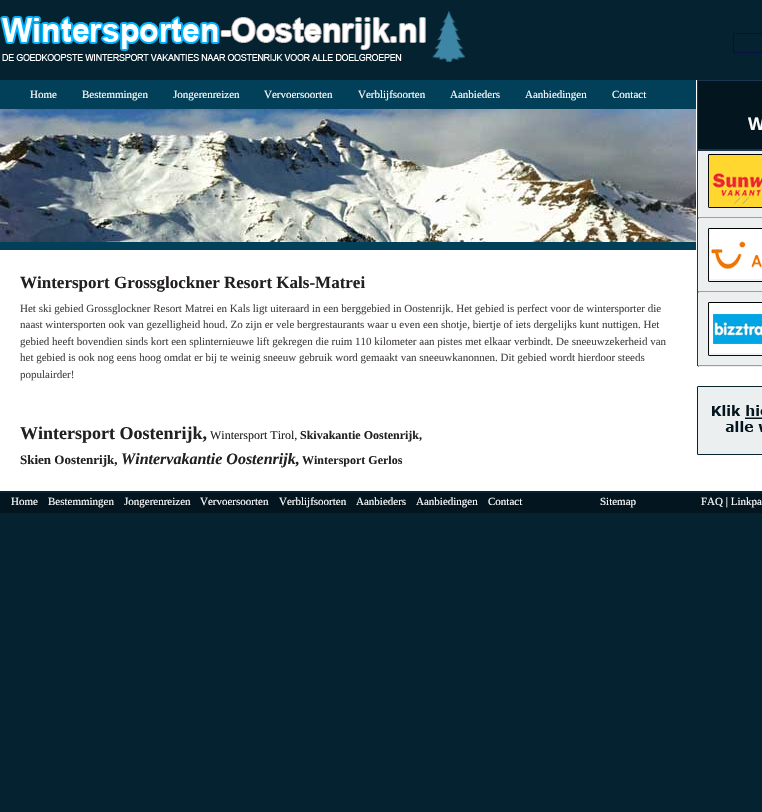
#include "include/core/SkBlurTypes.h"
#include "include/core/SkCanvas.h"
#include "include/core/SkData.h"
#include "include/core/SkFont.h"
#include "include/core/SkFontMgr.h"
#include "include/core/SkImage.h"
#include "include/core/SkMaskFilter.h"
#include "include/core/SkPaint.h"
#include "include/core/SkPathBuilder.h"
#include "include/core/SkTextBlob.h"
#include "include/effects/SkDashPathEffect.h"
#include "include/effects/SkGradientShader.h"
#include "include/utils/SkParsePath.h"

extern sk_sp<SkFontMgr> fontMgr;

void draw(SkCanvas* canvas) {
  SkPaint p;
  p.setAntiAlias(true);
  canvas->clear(SkColorSetRGB(5, 34, 48));
  canvas->drawImageRect(SkImages::DeferredFromEncodedData(SkData::MakeFromFileName("images/1.png")), SkRect::MakeLTRB(0, 11, 465, 62), SkSamplingOptions());
  p.setStyle(SkPaint::kStroke_Style);
  p.setStrokeWidth(1);
  p.setColor(SkColorSetRGB(6, 16, 64));
  canvas->drawRect(SkRect::MakeLTRB(733.5f, 33.5f, 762.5f, 52.5f), p);
  p.setStyle(SkPaint::kFill_Style);
  p.setColor(SK_ColorWHITE);
  canvas->drawRect(SkRect::MakeLTRB(0, 80, 762, 491), p);
  p.setColor(SkColorSetRGB(1, 64, 88));
  canvas->drawRect(SkRect::MakeLTRB(0, 80, 696, 109), p);
  canvas->drawImageRect(SkImages::DeferredFromEncodedData(SkData::MakeFromFileName("images/2.png")), SkRect::MakeLTRB(0, 109, 696, 242), SkSamplingOptions());
  canvas->drawRect(SkRect::MakeLTRB(0, 242, 696, 250), p);
  p.setColor(SkColorSetRGB(3, 22, 31));
  canvas->drawRect(SkRect::MakeLTRB(697.5f, 80.5f, 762.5f, 149.5f), p);
  p.setStyle(SkPaint::kStroke_Style);
  p.setColor(SkColorSetRGB(28, 53, 77));
  canvas->drawRect(SkRect::MakeLTRB(697.5f, 80.5f, 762.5f, 149.5f), p);
  p.setStyle(SkPaint::kFill_Style);
  p.setColor(SkColorSetRGB(235, 239, 240));
  canvas->drawRect(SkRect::MakeLTRB(697.5f, 150.5f, 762.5f, 365.5f), p);
  p.setStyle(SkPaint::kStroke_Style);
  p.setColor(SkColorSetRGB(28, 53, 77));
  canvas->drawRect(SkRect::MakeLTRB(697.5f, 150.5f, 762.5f, 365.5f), p);
  canvas->drawImageRect(SkImages::DeferredFromEncodedData(SkData::MakeFromFileName("images/3.png")), SkRect::MakeLTRB(708, 154, 762, 208), SkSamplingOptions());
  p.setStyle(SkPaint::kFill_Style);
  p.setColor(SkColorSetRGB(159, 159, 159));
  canvas->drawRect(SkRect::MakeLTRB(698, 217, 762, 218), p);
  p.setColor(SkColorSetRGB(238, 238, 238));
  canvas->drawRect(SkRect::MakeLTRB(698, 218, 762, 219), p);
  p.setColor(SkColorSetRGB(159, 159, 159));
  canvas->drawRect(SkRect::MakeLTRB(698, 217, 699, 219), p);
  canvas->drawImageRect(SkImages::DeferredFromEncodedData(SkData::MakeFromFileName("images/4.png")), SkRect::MakeLTRB(708, 228, 762, 282), SkSamplingOptions());
  canvas->drawRect(SkRect::MakeLTRB(698, 291, 762, 292), p);
  p.setColor(SkColorSetRGB(238, 238, 238));
  canvas->drawRect(SkRect::MakeLTRB(698, 292, 762, 293), p);
  p.setColor(SkColorSetRGB(159, 159, 159));
  canvas->drawRect(SkRect::MakeLTRB(698, 291, 699, 293), p);
  canvas->drawImageRect(SkImages::DeferredFromEncodedData(SkData::MakeFromFileName("images/5.png")), SkRect::MakeLTRB(708, 302, 762, 356), SkSamplingOptions());
  canvas->drawRect(SkRect::MakeLTRB(698, 365, 762, 366), p);
  p.setColor(SkColorSetRGB(238, 238, 238));
  canvas->drawRect(SkRect::MakeLTRB(698, 366, 762, 367), p);
  p.setColor(SkColorSetRGB(159, 159, 159));
  canvas->drawRect(SkRect::MakeLTRB(698, 365, 699, 367), p);
  canvas->drawImageRect(SkImages::DeferredFromEncodedData(SkData::MakeFromFileName("images/6.png")), SkRect::MakeLTRB(697, 386, 762, 455), SkSamplingOptions());
  p.setColor(SkColorSetRGB(3, 22, 31));
  canvas->drawRect(SkRect::MakeLTRB(0, 493, 762, 513), p);
  SkFont font1(fontMgr->matchFamilyStyle("Liberation Serif", SkFontStyle::Normal()), 11);
  font1.setSubpixel(true);
  p.setColor(SK_ColorWHITE);
  canvas->drawString("Home", 30, 98, font1, p);
  canvas->drawString("Bestemmingen", 82, 98, font1, p);
  canvas->drawString("Jongerenreizen", 173, 98, font1, p);
  canvas->drawString("Vervoersoorten", 264, 98, font1, p);
  canvas->drawString("Verblijfsoorten", 358, 98, font1, p);
  canvas->drawString("Aanbieders", 450, 98, font1, p);
  canvas->drawString("Aanbiedingen", 525, 98, font1, p);
  canvas->drawString("Contact", 612, 98, font1, p);
  SkFont font2(fontMgr->matchFamilyStyle("Liberation Serif", SkFontStyle::Bold()), 17);
  font2.setSubpixel(true);
  p.setColor(SkColorSetRGB(35, 32, 32));
  canvas->drawString("Wintersport Grossglockner Resort Kals-Matrei", 20, 288, font2, p);
  p.setColor(SkColorSetRGB(69, 65, 65));
  canvas->drawString("Het ski gebied Grossglockner Resort Matrei en Kals ligt uiteraard in een berggebied in Oostenrijk. Het gebied is perfect voor de wintersporter die", 20, 312, font1, p);
  canvas->drawString("naast wintersporten ook van gezelligheid houd. Zo zijn er vele bergrestaurants waar u even een shotje, biertje of iets dergelijks kunt nuttigen. Het", 20, 328, font1, p);
  canvas->drawString("gebied heeft bovendien sinds kort een splinternieuwe lift gekregen die ruim 110 kilometer aan pistes met elkaar verbindt. De sneeuwzekerheid van", 20, 345, font1, p);
  canvas->drawString("het gebied is ook nog eens hoog omdat er bij te weinig sneeuw gebruik word gemaakt van sneeuwkanonnen. Dit gebied wordt hierdoor steeds", 20, 361, font1, p);
  canvas->drawString("populairder!", 20, 378, font1, p);
  SkFont font3(fontMgr->matchFamilyStyle("Liberation Serif", SkFontStyle::Bold()), 18);
  font3.setSubpixel(true);
  p.setColor(SkColorSetRGB(35, 32, 32));
  canvas->drawString("Wintersport Oostenrijk,", 20, 439, font3, p);
  SkFont font4(fontMgr->matchFamilyStyle("Liberation Serif", SkFontStyle::Normal()), 12);
  font4.setSubpixel(true);
  canvas->drawString("Wintersport Tirol,", 210, 439, font4, p);
  SkFont font5(fontMgr->matchFamilyStyle("Liberation Serif", SkFontStyle::Bold()), 12);
  font5.setSubpixel(true);
  canvas->drawString("Skivakantie Oostenrijk,", 300, 439, font5, p);
  SkFont font6(fontMgr->matchFamilyStyle("Liberation Serif", SkFontStyle::Bold()), 13);
  font6.setSubpixel(true);
  canvas->drawString("Skien Oostenrijk,", 20, 464, font6, p);
  SkFont font7(fontMgr->matchFamilyStyle("Liberation Serif", SkFontStyle::BoldItalic()), 16);
  font7.setSubpixel(true);
  canvas->drawString("Wintervakantie Oostenrijk,", 121, 464, font7, p);
  canvas->drawString("Wintersport Gerlos", 302, 464, font5, p);
  SkFont font8(fontMgr->matchFamilyStyle("Liberation Sans", SkFontStyle::Bold()), 18);
  font8.setSubpixel(true);
  p.setColor(SK_ColorWHITE);
  canvas->drawString("W", 748, 130, font8, p);
  canvas->drawString("Home", 11, 505, font1, p);
  canvas->drawString("Bestemmingen", 48, 505, font1, p);
  canvas->drawString("Jongerenreizen", 124, 505, font1, p);
  canvas->drawString("Vervoersoorten", 200, 505, font1, p);
  canvas->drawString("Verblijfsoorten", 279, 505, font1, p);
  canvas->drawString("Aanbieders", 356, 505, font1, p);
  canvas->drawString("Aanbiedingen", 416, 505, font1, p);
  canvas->drawString("Contact", 488, 505, font1, p);
  canvas->drawString("Sitemap", 600, 505, font1, p);
  canvas->drawString("FAQ | Linkpa", 701, 505, font1, p);
}
